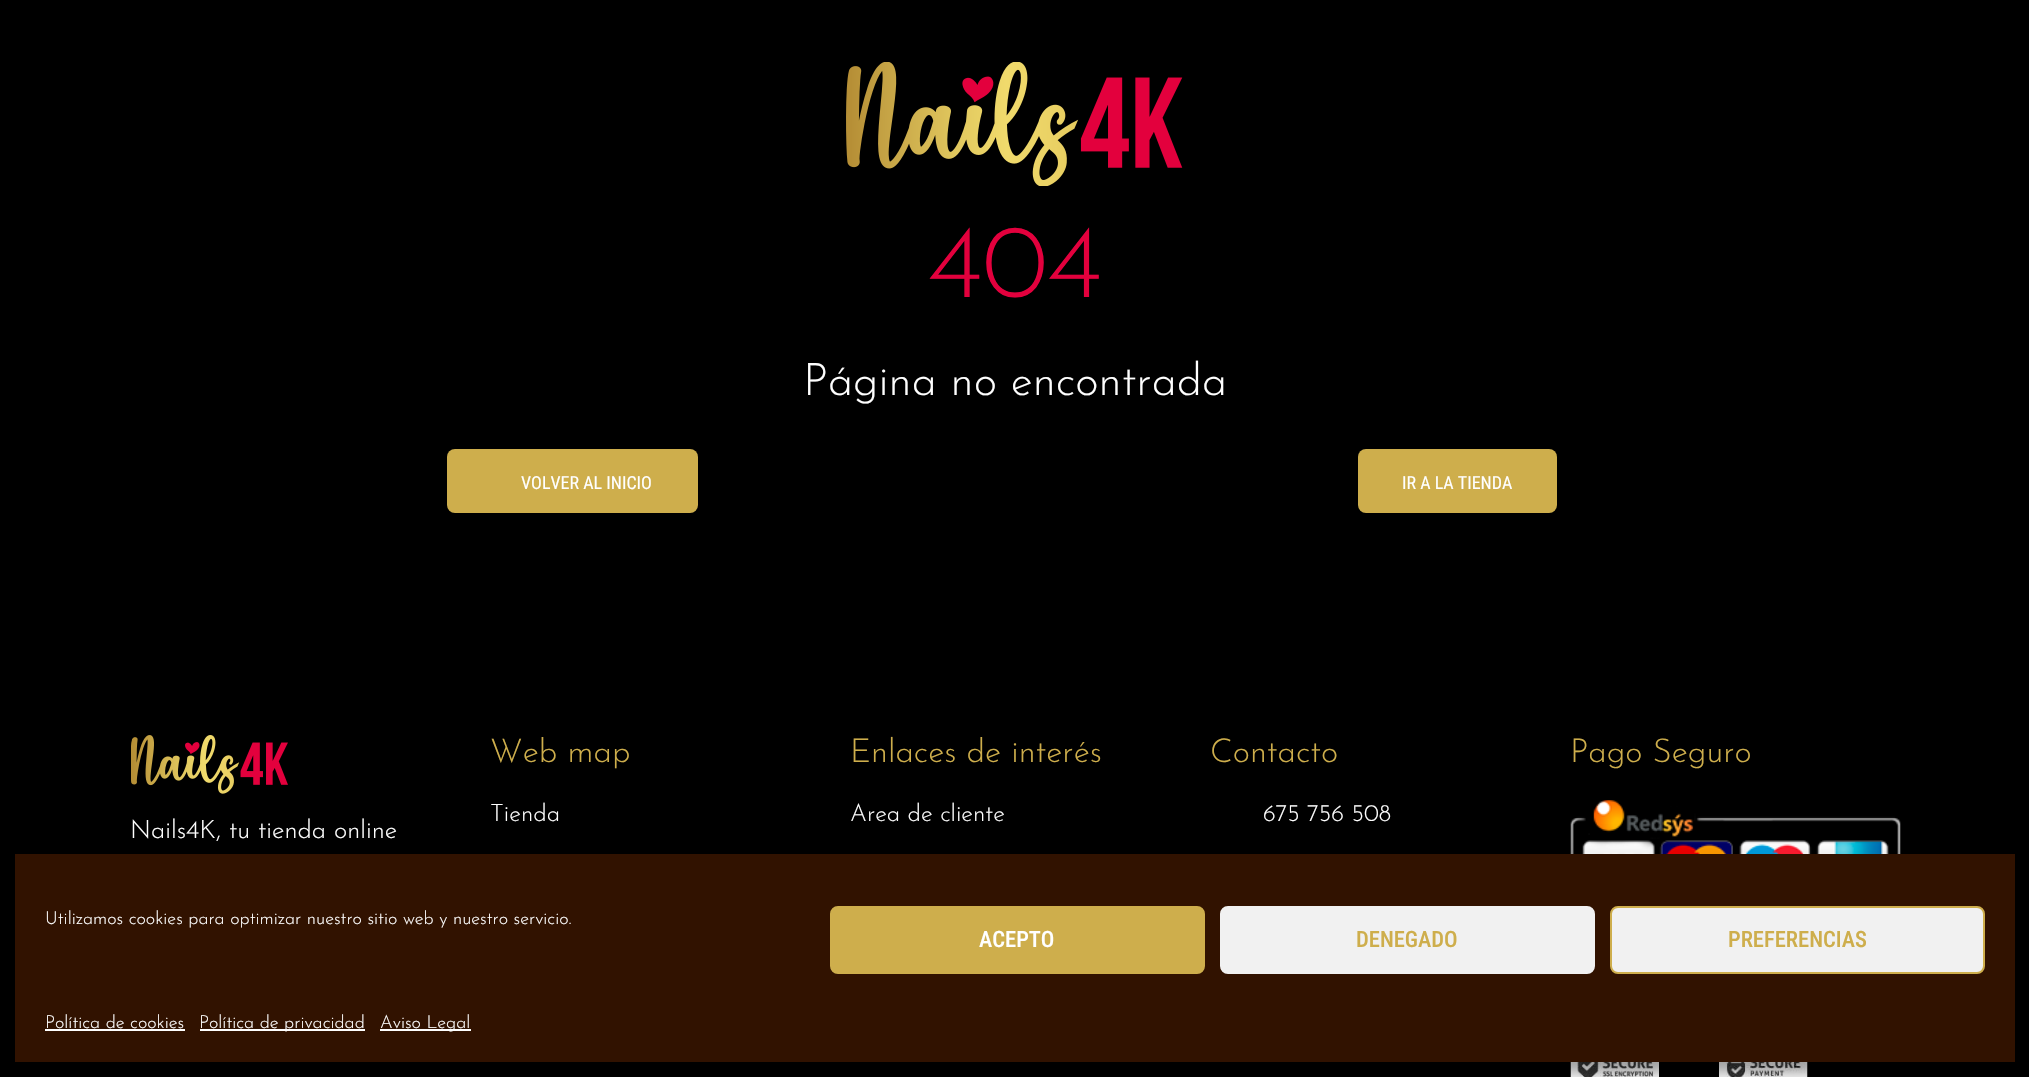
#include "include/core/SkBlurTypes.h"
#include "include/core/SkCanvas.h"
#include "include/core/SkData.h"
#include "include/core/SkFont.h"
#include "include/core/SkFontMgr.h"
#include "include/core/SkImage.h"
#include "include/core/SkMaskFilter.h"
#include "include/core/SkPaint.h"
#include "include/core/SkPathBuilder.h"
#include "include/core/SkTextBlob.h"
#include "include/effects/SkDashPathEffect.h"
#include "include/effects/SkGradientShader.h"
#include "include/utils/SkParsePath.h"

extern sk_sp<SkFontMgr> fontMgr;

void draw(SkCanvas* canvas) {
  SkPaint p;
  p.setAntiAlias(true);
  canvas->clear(SK_ColorBLACK);
  canvas->drawImageRect(SkImages::DeferredFromEncodedData(SkData::MakeFromFileName("images/1.png")), SkRect::MakeLTRB(846, 62, 1183, 186), SkSamplingOptions());
  p.setColor(SkColorSetRGB(206, 174, 76));
  canvas->drawRoundRect(SkRect::MakeLTRB(447, 449, 698, 513), 8, 8, p);
  canvas->drawRoundRect(SkRect::MakeLTRB(1358, 449, 1557, 513), 8, 8, p);
  canvas->drawImageRect(SkImages::DeferredFromEncodedData(SkData::MakeFromFileName("images/2.png")), SkRect::MakeLTRB(1570, 800, 1901, 854), SkSamplingOptions());
  canvas->drawImageRect(SkImages::DeferredFromEncodedData(SkData::MakeFromFileName("images/3.png")), SkRect::MakeLTRB(1570, 1062, 1659, 1077), SkSamplingOptions());
  canvas->drawImageRect(SkImages::DeferredFromEncodedData(SkData::MakeFromFileName("images/4.png")), SkRect::MakeLTRB(1719, 1062, 1808, 1077), SkSamplingOptions());
  canvas->drawImageRect(SkImages::DeferredFromEncodedData(SkData::MakeFromFileName("images/5.png")), SkRect::MakeLTRB(131, 735, 288, 794), SkSamplingOptions());
  p.setColor(SkColorSetARGB(59, 0, 0, 0));
  p.setMaskFilter(SkMaskFilter::MakeBlur(kNormal_SkBlurStyle, 4.5f));
  canvas->drawRect(SkRect::MakeLTRB(15, 863, 2015, 1071), p);
  p.setMaskFilter(nullptr);
  p.setColor(SkColorSetARGB(48, 0, 0, 0));
  p.setMaskFilter(SkMaskFilter::MakeBlur(kNormal_SkBlurStyle, 15));
  canvas->drawRect(SkRect::MakeLTRB(15, 869, 2015, 1077), p);
  p.setMaskFilter(nullptr);
  p.setColor(SkColorSetRGB(49, 18, 0));
  canvas->drawRect(SkRect::MakeLTRB(15, 854, 2015, 1062), p);
  p.setColor(SkColorSetRGB(206, 174, 76));
  canvas->drawRoundRect(SkRect::MakeLTRB(831, 907, 1204, 973), 7, 7, p);
  p.setStyle(SkPaint::kStroke_Style);
  p.setStrokeWidth(2);
  canvas->drawRoundRect(SkRect::MakeLTRB(831, 907, 1204, 973), 7, 7, p);
  p.setStyle(SkPaint::kFill_Style);
  p.setColor(SkColorSetRGB(241, 241, 241));
  canvas->drawRoundRect(SkRect::MakeLTRB(1221, 907, 1594, 973), 7, 7, p);
  p.setStyle(SkPaint::kStroke_Style);
  canvas->drawRoundRect(SkRect::MakeLTRB(1221, 907, 1594, 973), 7, 7, p);
  p.setStyle(SkPaint::kFill_Style);
  canvas->drawRoundRect(SkRect::MakeLTRB(1611, 907, 1984, 973), 7, 7, p);
  p.setStyle(SkPaint::kStroke_Style);
  p.setColor(SkColorSetRGB(206, 174, 76));
  canvas->drawRoundRect(SkRect::MakeLTRB(1611, 907, 1984, 973), 7, 7, p);
  p.setStyle(SkPaint::kFill_Style);
  p.setColor(SK_ColorWHITE);
  canvas->drawRect(SkRect::MakeLTRB(45, 1029, 185, 1031), p);
  canvas->drawRect(SkRect::MakeLTRB(200, 1029, 365, 1031), p);
  canvas->drawRect(SkRect::MakeLTRB(380, 1029, 471, 1031), p);
  SkFont font1(fontMgr->matchFamilyStyle("Josefin Sans", SkFontStyle(300, SkFontStyle::kNormal_Width, SkFontStyle::kUpright_Slant)), 105);
  font1.setSubpixel(true);
  p.setColor(SkColorSetRGB(227, 0, 61));
  canvas->drawString("404", 928, 297, font1, p);
  SkFont font2(fontMgr->matchFamilyStyle("Josefin Sans", SkFontStyle(300, SkFontStyle::kNormal_Width, SkFontStyle::kUpright_Slant)), 45);
  font2.setSubpixel(true);
  p.setColor(SK_ColorWHITE);
  canvas->drawString("Página no encontrada", 803, 395, font2, p);
  SkFont font3(fontMgr->matchFamilyStyle("Roboto Condensed", SkFontStyle::Normal()), 18);
  font3.setSubpixel(true);
  canvas->drawString("VOLVER AL INICIO", 521, 489, font3, p);
  canvas->drawString("IR A LA TIENDA", 1402, 489, font3, p);
  SkFont font4(fontMgr->matchFamilyStyle("Josefin Sans", SkFontStyle(300, SkFontStyle::kNormal_Width, SkFontStyle::kUpright_Slant)), 33);
  font4.setSubpixel(true);
  p.setColor(SkColorSetRGB(206, 174, 76));
  canvas->drawString("Web map", 490, 762, font4, p);
  SkFont font5(fontMgr->matchFamilyStyle("Josefin Sans", SkFontStyle(300, SkFontStyle::kNormal_Width, SkFontStyle::kUpright_Slant)), 24);
  font5.setSubpixel(true);
  p.setColor(SK_ColorWHITE);
  canvas->drawString("Tienda", 490, 821, font5, p);
  p.setColor(SkColorSetRGB(206, 174, 76));
  canvas->drawString("Enlaces de interés", 850, 762, font4, p);
  p.setColor(SK_ColorWHITE);
  canvas->drawString("Area de cliente", 850, 821, font5, p);
  p.setColor(SkColorSetRGB(206, 174, 76));
  canvas->drawString("Contacto", 1210, 762, font4, p);
  p.setColor(SK_ColorWHITE);
  canvas->drawString("675 756 508", 1263, 821, font5, p);
  p.setColor(SkColorSetRGB(206, 174, 76));
  canvas->drawString("Pago Seguro", 1570, 762, font4, p);
  SkFont font6(fontMgr->matchFamilyStyle("Josefin Sans", SkFontStyle(300, SkFontStyle::kNormal_Width, SkFontStyle::kUpright_Slant)), 25.5f);
  font6.setSubpixel(true);
  p.setColor(SK_ColorWHITE);
  canvas->drawString("Nails4K, tu tienda online", 130, 838, font6, p);
  SkFont font7(fontMgr->matchFamilyStyle("Josefin Sans", SkFontStyle(300, SkFontStyle::kNormal_Width, SkFontStyle::kUpright_Slant)), 18);
  font7.setSubpixel(true);
  canvas->drawString("Utilizamos cookies para optimizar nuestro sitio web y nuestro servicio.", 45, 924, font7, p);
  SkFont font8(fontMgr->matchFamilyStyle("Roboto Condensed", SkFontStyle(500, SkFontStyle::kNormal_Width, SkFontStyle::kUpright_Slant)), 22.5f);
  font8.setSubpixel(true);
  canvas->drawString("ACEPTO", 979, 947, font8, p);
  p.setColor(SkColorSetRGB(206, 174, 76));
  canvas->drawString("DENEGADO", 1356, 947, font8, p);
  canvas->drawString("PREFERENCIAS", 1728, 947, font8, p);
  p.setColor(SK_ColorWHITE);
  canvas->drawString("Política de cookies", 45, 1028, font7, p);
  canvas->drawString("Política de privacidad", 199, 1028, font7, p);
  canvas->drawString("Aviso Legal", 380, 1028, font7, p);
}
